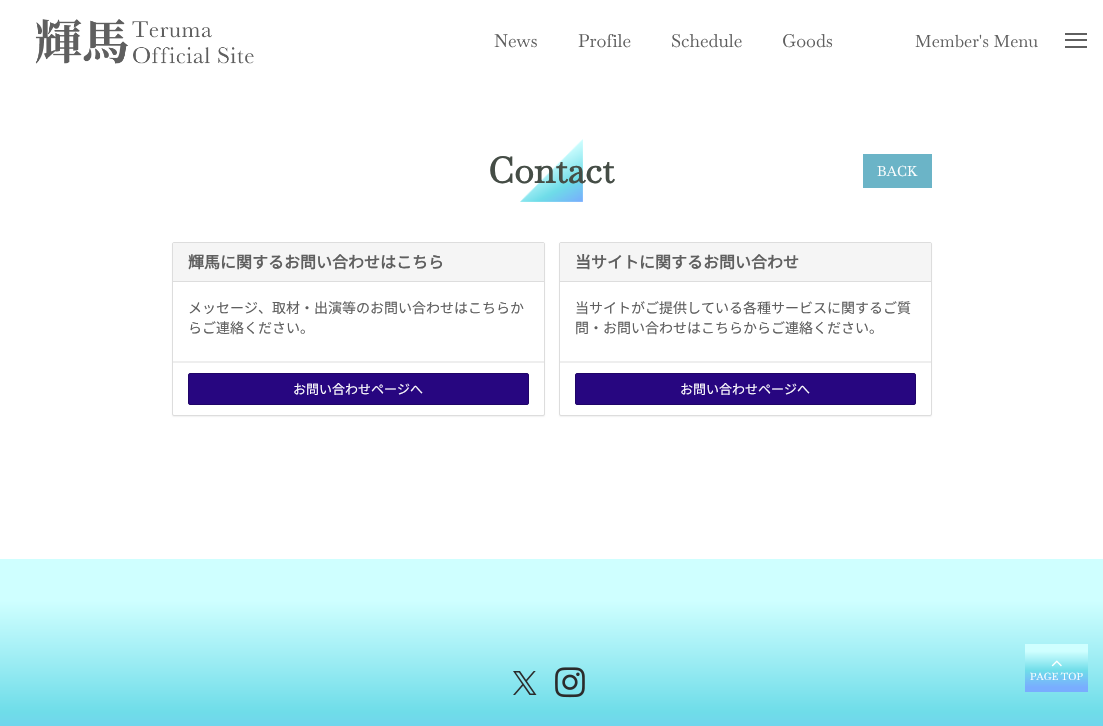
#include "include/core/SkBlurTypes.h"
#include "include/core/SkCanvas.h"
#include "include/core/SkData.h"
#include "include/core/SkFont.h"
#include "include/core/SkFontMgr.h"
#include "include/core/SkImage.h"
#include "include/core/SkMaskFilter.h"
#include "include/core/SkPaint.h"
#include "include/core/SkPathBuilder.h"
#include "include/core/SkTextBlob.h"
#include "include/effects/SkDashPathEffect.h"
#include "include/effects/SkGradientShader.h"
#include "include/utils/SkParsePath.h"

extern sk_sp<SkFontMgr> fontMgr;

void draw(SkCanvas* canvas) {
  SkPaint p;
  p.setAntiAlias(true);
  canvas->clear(SK_ColorWHITE);
  canvas->drawImageRect(SkImages::DeferredFromEncodedData(SkData::MakeFromFileName("images/1.png")), SkRect::MakeLTRB(35, 19, 254, 64), SkSamplingOptions());
  p.setColor(SkColorSetRGB(95, 95, 95));
  canvas->drawRect(SkRect::MakeLTRB(1065, 39, 1087, 41), p);
  canvas->drawRect(SkRect::MakeLTRB(1065, 33, 1087, 35), p);
  canvas->drawRect(SkRect::MakeLTRB(1065, 46, 1087, 48), p);
  canvas->drawImageRect(SkImages::DeferredFromEncodedData(SkData::MakeFromFileName("images/2.png")), SkRect::MakeLTRB(520, 139, 583, 202), SkSamplingOptions());
  p.setColor(SkColorSetRGB(107, 180, 199));
  canvas->drawRect(SkRect::MakeLTRB(863, 154, 932, 188), p);
  p.setColor(SkColorSetARGB(13, 0, 0, 0));
  p.setMaskFilter(SkMaskFilter::MakeBlur(kNormal_SkBlurStyle, 0.5f));
  canvas->drawRoundRect(SkRect::MakeLTRB(172, 243, 545, 417), 2, 2, p);
  p.setMaskFilter(nullptr);
  p.setColor(SK_ColorWHITE);
  canvas->drawRoundRect(SkRect::MakeLTRB(172.5f, 242.5f, 544.5f, 415.5f), 1.5f, 1.5f, p);
  p.setStyle(SkPaint::kStroke_Style);
  p.setStrokeWidth(1);
  p.setColor(SkColorSetRGB(221, 221, 221));
  canvas->drawRoundRect(SkRect::MakeLTRB(172.5f, 242.5f, 544.5f, 415.5f), 1.5f, 1.5f, p);
  p.setStyle(SkPaint::kFill_Style);
  p.setColor(SkColorSetRGB(245, 245, 245));
  canvas->drawPath(SkPathBuilder().moveTo(174, 243).lineTo(543, 243).cubicTo(543.5f, 243, 544, 243.5f, 544, 244).lineTo(544, 282).lineTo(173, 282).lineTo(173, 244).cubicTo(173, 243.5f, 173.5f, 243, 174, 243).close().detach(), p);
  p.setColor(SkColorSetRGB(221, 221, 221));
  canvas->drawRect(SkRect::MakeLTRB(173, 281, 544, 282), p);
  p.setColor(SkColorSetRGB(238, 238, 238));
  canvas->drawRect(SkRect::MakeLTRB(173, 361, 544, 363), p);
  p.setColor(SkColorSetRGB(39, 6, 128));
  canvas->drawRoundRect(SkRect::MakeLTRB(188.5f, 373.5f, 528.5f, 404.5f), 1.5f, 1.5f, p);
  p.setStyle(SkPaint::kStroke_Style);
  p.setColor(SkColorSetRGB(32, 5, 104));
  canvas->drawRoundRect(SkRect::MakeLTRB(188.5f, 373.5f, 528.5f, 404.5f), 1.5f, 1.5f, p);
  p.setStyle(SkPaint::kFill_Style);
  p.setColor(SkColorSetARGB(13, 0, 0, 0));
  p.setMaskFilter(SkMaskFilter::MakeBlur(kNormal_SkBlurStyle, 0.5f));
  canvas->drawRoundRect(SkRect::MakeLTRB(559, 243, 932, 417), 2, 2, p);
  p.setMaskFilter(nullptr);
  p.setColor(SK_ColorWHITE);
  canvas->drawRoundRect(SkRect::MakeLTRB(559.5f, 242.5f, 931.5f, 415.5f), 1.5f, 1.5f, p);
  p.setStyle(SkPaint::kStroke_Style);
  p.setColor(SkColorSetRGB(221, 221, 221));
  canvas->drawRoundRect(SkRect::MakeLTRB(559.5f, 242.5f, 931.5f, 415.5f), 1.5f, 1.5f, p);
  p.setStyle(SkPaint::kFill_Style);
  p.setColor(SkColorSetRGB(245, 245, 245));
  canvas->drawPath(SkPathBuilder().moveTo(561, 243).lineTo(930, 243).cubicTo(930.5f, 243, 931, 243.5f, 931, 244).lineTo(931, 282).lineTo(560, 282).lineTo(560, 244).cubicTo(560, 243.5f, 560.5f, 243, 561, 243).close().detach(), p);
  p.setColor(SkColorSetRGB(221, 221, 221));
  canvas->drawRect(SkRect::MakeLTRB(560, 281, 931, 282), p);
  p.setColor(SkColorSetRGB(238, 238, 238));
  canvas->drawRect(SkRect::MakeLTRB(560, 361, 931, 363), p);
  p.setColor(SkColorSetRGB(39, 6, 128));
  canvas->drawRoundRect(SkRect::MakeLTRB(575.5f, 373.5f, 915.5f, 404.5f), 1.5f, 1.5f, p);
  p.setStyle(SkPaint::kStroke_Style);
  p.setColor(SkColorSetRGB(32, 5, 104));
  canvas->drawRoundRect(SkRect::MakeLTRB(575.5f, 373.5f, 915.5f, 404.5f), 1.5f, 1.5f, p);
  p.setStyle(SkPaint::kFill_Style);
  {
    const SkColor colors[] = {SkColorSetRGB(121, 173, 255), SkColorSetRGB(111, 221, 233), SkColorSetRGB(163, 239, 245), SkColorSetRGB(207, 255, 255)};
    const float stops[] = {0.1f, 0.45f, 0.66f, 0.85f};
    const SkPoint ends[] = {{552, 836}, {552, 559}};
    p.setShader(SkGradientShader::MakeLinear(ends, colors, stops, 4, SkTileMode::kClamp));
    p.setAlpha(255);
  }
  canvas->drawRect(SkRect::MakeLTRB(0, 559, 1103, 726), p);
  canvas->drawImageRect(SkImages::DeferredFromEncodedData(SkData::MakeFromFileName("images/3.png")), SkRect::MakeLTRB(513, 671, 537, 695), SkSamplingOptions());
  canvas->drawImageRect(SkImages::DeferredFromEncodedData(SkData::MakeFromFileName("images/4.png")), SkRect::MakeLTRB(555, 667, 585, 698), SkSamplingOptions());
  {
    const SkColor colors[] = {SkColorSetRGB(121, 173, 255), SkColorSetRGB(111, 221, 233), SkColorSetRGB(163, 239, 245), SkColorSetRGB(207, 255, 255)};
    const float stops[] = {0.1f, 0.45f, 0.66f, 0.85f};
    const SkPoint ends[] = {{1057, 692}, {1057, 644}};
    p.setShader(SkGradientShader::MakeLinear(ends, colors, stops, 4, SkTileMode::kClamp));
    p.setAlpha(255);
  }
  canvas->drawRect(SkRect::MakeLTRB(1025, 644, 1088, 692), p);
  canvas->drawImageRect(SkImages::DeferredFromEncodedData(SkData::MakeFromFileName("images/5.png")), SkRect::MakeLTRB(1051, 660, 1062, 667), SkSamplingOptions());
  SkFont font1(fontMgr->matchFamilyStyle("Baskervville", SkFontStyle::Normal()), 18);
  font1.setSubpixel(true);
  p.setShader(nullptr);
  p.setColor(SkColorSetRGB(95, 95, 95));
  canvas->drawString("News", 494, 47, font1, p);
  canvas->drawString("Profile", 578, 47, font1, p);
  canvas->drawString("Schedule", 671, 47, font1, p);
  canvas->drawString("Goods", 782, 47, font1, p);
  SkFont font2(fontMgr->matchFamilyStyle("Baskervville", SkFontStyle::Normal()), 17);
  font2.setSubpixel(true);
  canvas->drawString("Member's Menu", 915, 47, font2, p);
  SkFont font3(fontMgr->matchFamilyStyle("Baskervville", SkFontStyle::Bold()), 36);
  font3.setSubpixel(true);
  p.setColor(SkColorSetRGB(69, 77, 70));
  canvas->drawString("Contact", 488, 183, font3, p);
  SkFont font4(fontMgr->matchFamilyStyle("Baskervville", SkFontStyle::Normal()), 14);
  font4.setSubpixel(true);
  p.setColor(SK_ColorWHITE);
  canvas->drawString("BACK", 877, 176, font4, p);
  SkFont font5(fontMgr->matchFamilyStyle("Noto Sans JP", SkFontStyle::Bold()), 16);
  font5.setSubpixel(true);
  p.setColor(SkColorSetRGB(95, 95, 95));
  canvas->drawString("輝馬に関するお問い合わせはこちら", 188, 268, font5, p);
  SkFont font6(fontMgr->matchFamilyStyle("Noto Sans JP", SkFontStyle::Normal()), 14);
  font6.setSubpixel(true);
  canvas->drawString("メッセージ、取材・出演等のお問い合わせはこちらか", 188, 313, font6, p);
  canvas->drawString("らご連絡ください。", 188, 333, font6, p);
  SkFont font7(fontMgr->matchFamilyStyle("Noto Sans JP", SkFontStyle::Normal()), 13);
  font7.setSubpixel(true);
  p.setColor(SK_ColorWHITE);
  canvas->drawString("お問い合わせページへ", 293, 394, font7, p);
  p.setColor(SkColorSetRGB(95, 95, 95));
  canvas->drawString("当サイトに関するお問い合わせ", 575, 268, font5, p);
  canvas->drawString("当サイトがご提供している各種サービスに関するご質", 575, 313, font6, p);
  canvas->drawString("問・お問い合わせはこちらからご連絡ください。", 575, 333, font6, p);
  p.setColor(SK_ColorWHITE);
  canvas->drawString("お問い合わせページへ", 680, 394, font7, p);
  SkFont font8(fontMgr->matchFamilyStyle("Baskervville", SkFontStyle::Normal()), 10);
  font8.setSubpixel(true);
  canvas->drawString("PAGE TOP", 1030, 680, font8, p);
}
